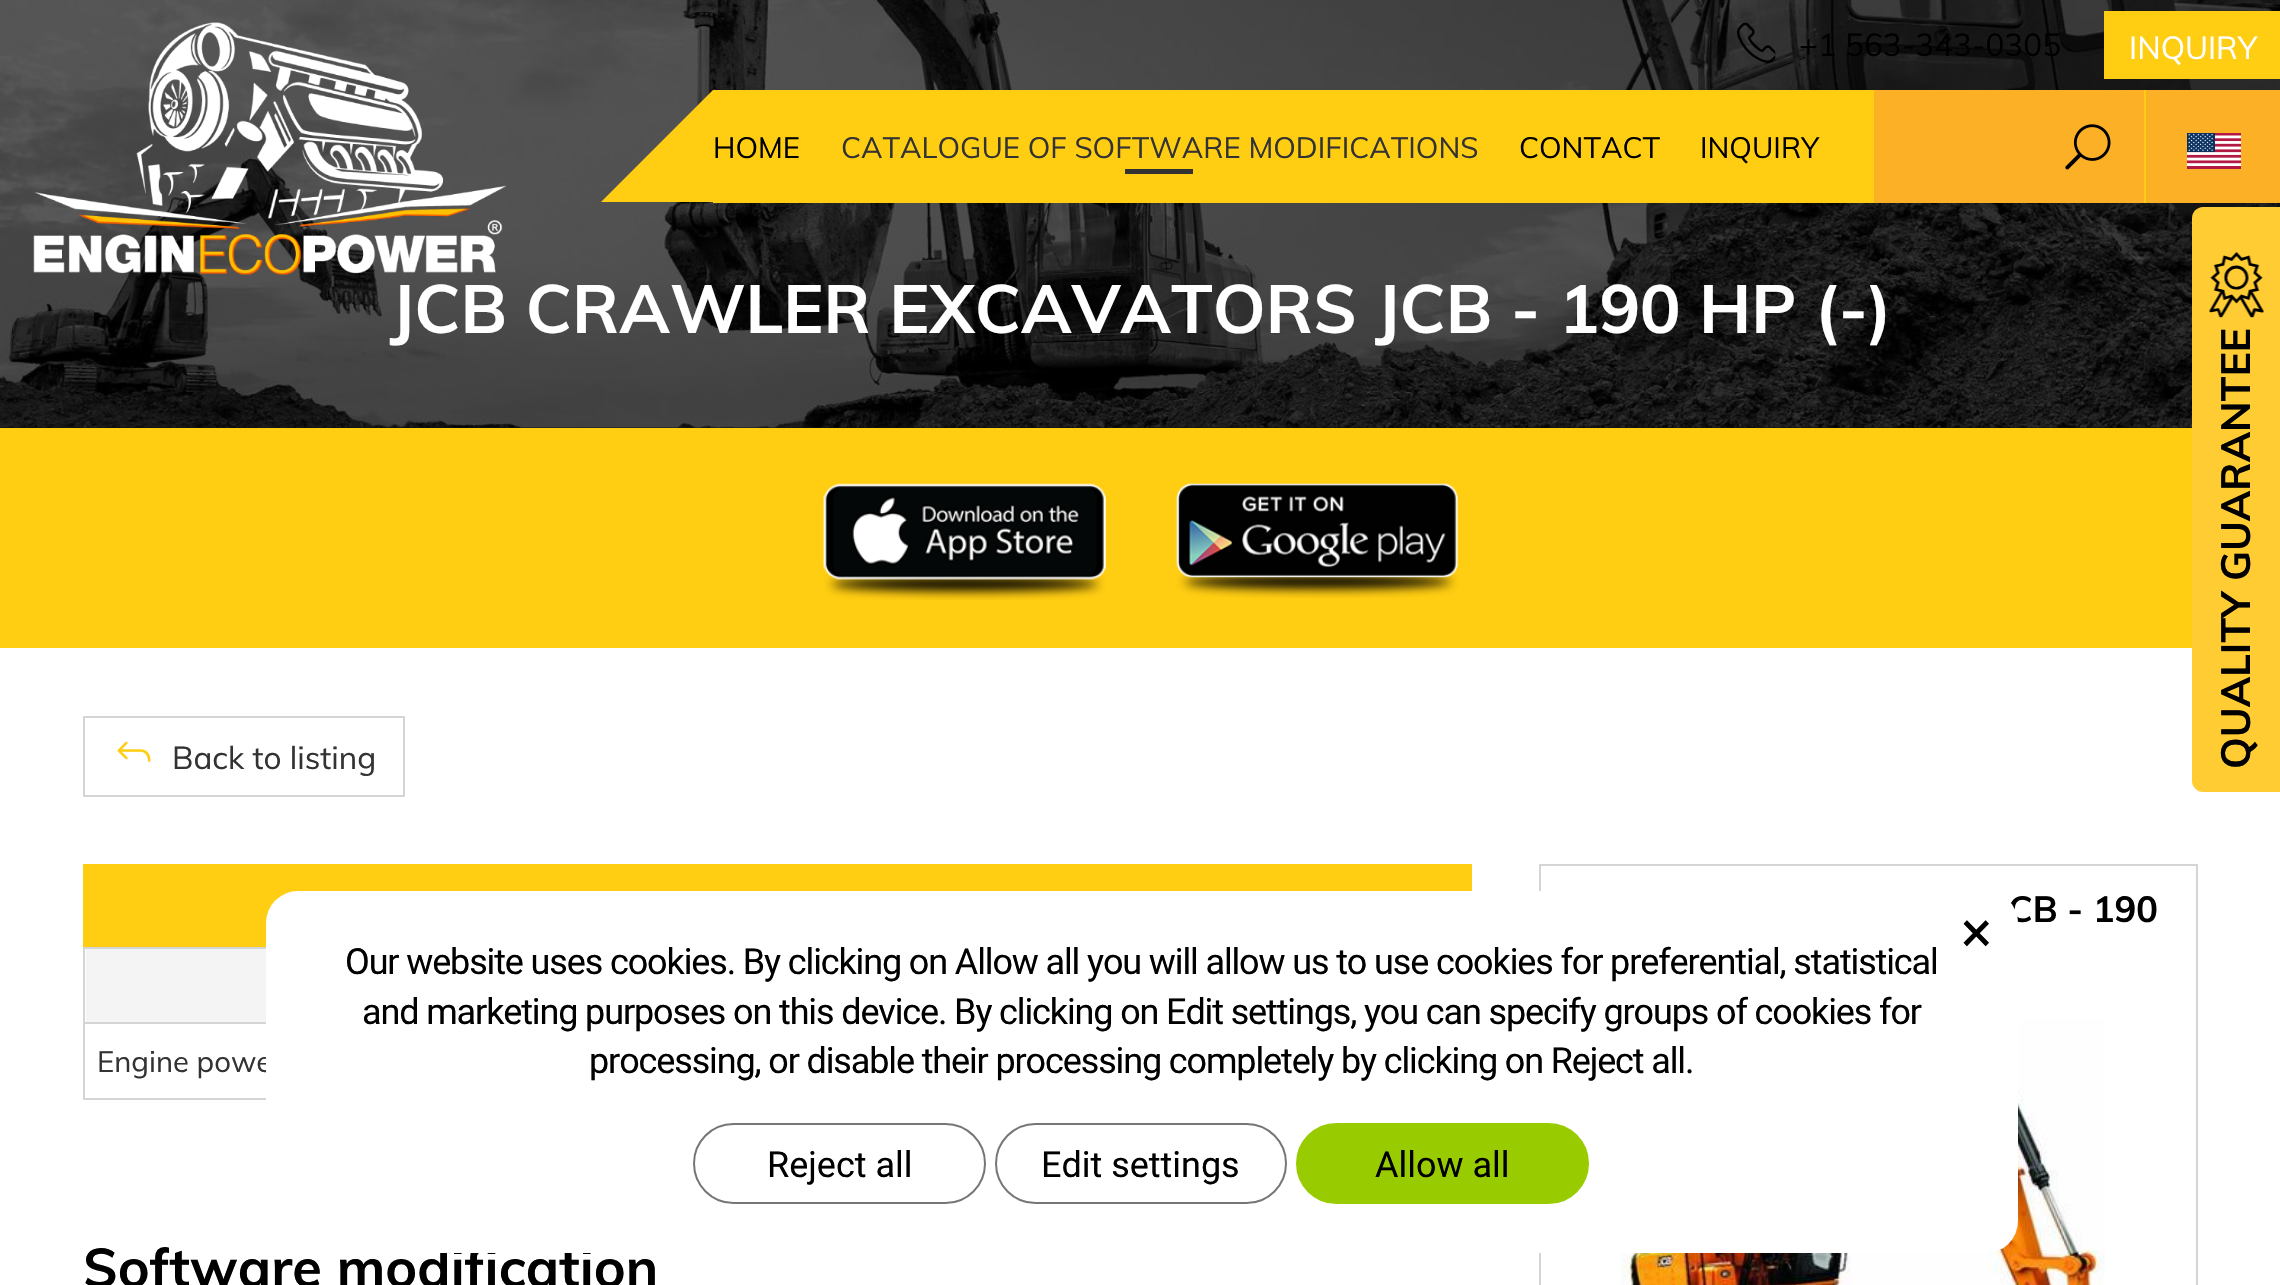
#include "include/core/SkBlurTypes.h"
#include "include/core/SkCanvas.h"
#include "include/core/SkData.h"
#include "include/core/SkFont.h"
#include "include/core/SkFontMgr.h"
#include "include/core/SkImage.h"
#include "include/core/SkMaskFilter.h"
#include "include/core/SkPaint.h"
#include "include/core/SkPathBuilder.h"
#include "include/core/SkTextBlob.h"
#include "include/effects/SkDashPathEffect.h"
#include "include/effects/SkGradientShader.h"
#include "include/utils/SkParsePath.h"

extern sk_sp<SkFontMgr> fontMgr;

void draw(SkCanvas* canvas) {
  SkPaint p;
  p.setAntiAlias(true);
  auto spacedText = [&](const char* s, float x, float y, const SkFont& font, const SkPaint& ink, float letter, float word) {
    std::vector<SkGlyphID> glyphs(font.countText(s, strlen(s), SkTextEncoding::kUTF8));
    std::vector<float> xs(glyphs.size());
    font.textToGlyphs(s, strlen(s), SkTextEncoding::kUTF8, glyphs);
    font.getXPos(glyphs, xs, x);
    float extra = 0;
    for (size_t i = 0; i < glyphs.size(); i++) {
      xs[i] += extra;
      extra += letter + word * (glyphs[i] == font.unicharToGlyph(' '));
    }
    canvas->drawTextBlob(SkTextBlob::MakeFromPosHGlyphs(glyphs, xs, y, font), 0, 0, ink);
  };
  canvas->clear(SkColorSetRGB(255, 205, 17));
  p.setColor(SkColorSetRGB(18, 18, 18));
  canvas->drawRect(SkRect::MakeLTRB(0, 427, 2192, 428), p);
  canvas->drawImageRect(SkImages::DeferredFromEncodedData(SkData::MakeFromFileName("images/5.png")), SkRect::MakeLTRB(0, 0, 2280, 428), SkSamplingOptions());
  canvas->drawImageRect(SkImages::DeferredFromEncodedData(SkData::MakeFromFileName("images/1.png")), SkRect::MakeLTRB(33, 22, 507, 275), SkSamplingOptions());
  p.setColor(SkColorSetRGB(252, 176, 38));
  canvas->drawRect(SkRect::MakeLTRB(1874, 90, 2280, 203), p);
  canvas->drawImageRect(SkImages::DeferredFromEncodedData(SkData::MakeFromFileName("images/2.png")), SkRect::MakeLTRB(1737, 22, 1776, 63), SkSamplingOptions());
  p.setColor(SkColorSetRGB(255, 205, 17));
  canvas->drawRect(SkRect::MakeLTRB(2104, 11, 2280, 79), p);
  canvas->drawRect(SkRect::MakeLTRB(2144, 90, 2146, 203), p);
  canvas->drawImageRect(SkImages::DeferredFromEncodedData(SkData::MakeFromFileName("images/3.png")), SkRect::MakeLTRB(2065, 124, 2111, 170), SkSamplingOptions());
  canvas->drawImageRect(SkImages::DeferredFromEncodedData(SkData::MakeFromFileName("images/4.png")), SkRect::MakeLTRB(2187, 133, 2241, 169), SkSamplingOptions());
  canvas->drawRect(SkRect::MakeLTRB(713, 90, 1874, 203), p);
  canvas->drawPath(SkPathBuilder().moveTo(713, 202).lineTo(601, 202).lineTo(713, 90).close().detach(), p);
  p.setColor(SkColorSetRGB(51, 51, 51));
  canvas->drawRect(SkRect::MakeLTRB(1125, 169, 1193, 174), p);
  canvas->drawImageRect(SkImages::DeferredFromEncodedData(SkData::MakeFromFileName("images/6.png")), SkRect::MakeLTRB(823, 483, 1106, 600), SkSamplingOptions());
  canvas->drawImageRect(SkImages::DeferredFromEncodedData(SkData::MakeFromFileName("images/7.png")), SkRect::MakeLTRB(1176, 483, 1459, 598), SkSamplingOptions());
  p.setColor(SK_ColorWHITE);
  canvas->drawRect(SkRect::MakeLTRB(0, 648, 2280, 1285), p);
  p.setStyle(SkPaint::kStroke_Style);
  p.setStrokeWidth(2);
  p.setColor(SkColorSetRGB(213, 213, 213));
  canvas->drawRect(SkRect::MakeLTRB(84, 717, 404, 796), p);
  canvas->drawImageRect(SkImages::DeferredFromEncodedData(SkData::MakeFromFileName("images/8.png")), SkRect::MakeLTRB(117, 741, 151, 762), SkSamplingOptions());
  canvas->drawRect(SkRect::MakeLTRB(1540, 865, 2197, 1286), p);
  canvas->drawImageRect(SkImages::DeferredFromEncodedData(SkData::MakeFromFileName("images/9.png")), SkRect::MakeLTRB(1620, 1019, 2105, 1285), SkSamplingOptions());
  p.setStyle(SkPaint::kFill_Style);
  p.setColor(SkColorSetRGB(255, 205, 17));
  canvas->drawRect(SkRect::MakeLTRB(83, 864, 1472, 947), p);
  p.setColor(SkColorSetRGB(244, 244, 244));
  canvas->drawRect(SkRect::MakeLTRB(86, 949, 266, 1022), p);
  p.setColor(SkColorSetRGB(213, 213, 213));
  canvas->drawRect(SkRect::MakeLTRB(83, 947, 266, 949), p);
  canvas->drawRect(SkRect::MakeLTRB(83, 1022, 266, 1024), p);
  canvas->drawRect(SkRect::MakeLTRB(83, 1098, 266, 1100), p);
  canvas->drawRect(SkRect::MakeLTRB(83, 1022, 85, 1100), p);
  canvas->drawRect(SkRect::MakeLTRB(83, 947, 85, 1024), p);
  p.setColor(SkColorSetRGB(255, 204, 51));
  canvas->drawPath(SkPathBuilder().moveTo(2203, 207).lineTo(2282, 207).lineTo(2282, 792).lineTo(2203, 792).cubicTo(2197, 792, 2192, 787, 2192, 781).lineTo(2192, 218).cubicTo(2192, 212, 2197, 207, 2203, 207).close().detach(), p);
  canvas->drawImageRect(SkImages::DeferredFromEncodedData(SkData::MakeFromFileName("images/10.png")), SkRect::MakeLTRB(2209, 252, 2264, 318), SkSamplingOptions());
  SkFont font1(fontMgr->matchFamilyStyle("Muli", SkFontStyle::Normal()), 31.5f);
  font1.setSubpixel(true);
  p.setColor(SK_ColorBLACK);
  canvas->drawString("+1 563-343-0305", 1799, 56, font1, p);
  p.setColor(SK_ColorWHITE);
  canvas->drawString("INQUIRY", 2129, 59, font1, p);
  SkFont font2(fontMgr->matchFamilyStyle("Muli", SkFontStyle::Normal()), 29.25f);
  font2.setSubpixel(true);
  p.setColor(SK_ColorBLACK);
  canvas->drawString("HOME", 713, 158, font2, p);
  p.setColor(SkColorSetRGB(51, 51, 51));
  canvas->drawString("CATALOGUE OF SOFTWARE MODIFICATIONS", 841, 158, font2, p);
  p.setColor(SK_ColorBLACK);
  canvas->drawString("CONTACT", 1519, 158, font2, p);
  canvas->drawString("INQUIRY", 1700, 158, font2, p);
  SkFont font3(fontMgr->matchFamilyStyle("Muli", SkFontStyle::Bold()), 67.5f);
  font3.setSubpixel(true);
  p.setColor(SK_ColorWHITE);
  canvas->drawString("JCB CRAWLER EXCAVATORS JCB - 190 HP (-)", 390, 333, font3, p);
  p.setColor(SkColorSetRGB(51, 51, 51));
  canvas->drawString("Back to listing", 172, 769, font1, p);
  SkFont font4(fontMgr->matchFamilyStyle("Muli", SkFontStyle::Bold()), 36);
  font4.setSubpixel(true);
  p.setColor(SK_ColorBLACK);
  canvas->drawString("CB - 190", 2008, 922, font4, p);
  p.setColor(SkColorSetRGB(51, 51, 51));
  canvas->drawString("Engine powe", 97, 1072, font2, p);
  SkFont font5(fontMgr->matchFamilyStyle("Muli", SkFontStyle::Bold()), 54);
  font5.setSubpixel(true);
  p.setColor(SK_ColorBLACK);
  canvas->drawString("Software modification", 83, 1287, font5, p);
  SkFont font6(fontMgr->matchFamilyStyle("Muli", SkFontStyle::Bold()), 40.5f);
  font6.setSubpixel(true);
  canvas->save();
  canvas->rotate(-90, 2250, 769);
  canvas->drawString("QUALITY GUARANTEE", 2250, 769, font6, p);
  canvas->restore();
  p.setColor(SK_ColorWHITE);
  canvas->drawRoundRect(SkRect::MakeLTRB(266, 891, 2018, 1253), 32, 32, p);
  SkFont font7(fontMgr->matchFamilyStyle("Roboto", SkFontStyle::Normal()), 58);
  font7.setSubpixel(true);
  p.setColor(SK_ColorBLACK);
  canvas->drawString("×", 1961, 952, font7, p);
  SkFont font8(fontMgr->matchFamilyStyle("Roboto", SkFontStyle::Normal()), 36);
  font8.setSubpixel(true);
  spacedText("Our website uses cookies. By clicking on Allow all you will allow us to use cookies for preferential, statistical", 345, 974, font8, p, -1.12f, 0);
  spacedText("and marketing purposes on this device. By clicking on Edit settings, you can specify groups of cookies for", 362, 1024, font8, p, -1.12f, 0);
  spacedText("processing, or disable their processing completely by clicking on Reject all.", 589, 1073, font8, p, -1.12f, 0);
  p.setStyle(SkPaint::kStroke_Style);
  p.setColor(SkColorSetRGB(118, 118, 118));
  canvas->drawRoundRect(SkRect::MakeLTRB(694, 1124, 985, 1203), 39.5f, 39.5f, p);
  p.setStyle(SkPaint::kFill_Style);
  p.setColor(SK_ColorBLACK);
  canvas->drawString("Reject all", 767, 1177, font8, p);
  p.setStyle(SkPaint::kStroke_Style);
  p.setColor(SkColorSetRGB(118, 118, 118));
  canvas->drawRoundRect(SkRect::MakeLTRB(996, 1124, 1286, 1203), 39.5f, 39.5f, p);
  p.setStyle(SkPaint::kFill_Style);
  p.setColor(SK_ColorBLACK);
  canvas->drawString("Edit settings", 1041, 1177, font8, p);
  p.setColor(SkColorSetRGB(153, 204, 0));
  canvas->drawRoundRect(SkRect::MakeLTRB(1297, 1124, 1588, 1203), 39.5f, 39.5f, p);
  p.setStyle(SkPaint::kStroke_Style);
  canvas->drawRoundRect(SkRect::MakeLTRB(1297, 1124, 1588, 1203), 39.5f, 39.5f, p);
  p.setStyle(SkPaint::kFill_Style);
  p.setColor(SK_ColorBLACK);
  canvas->drawString("Allow all", 1375, 1177, font8, p);
}
